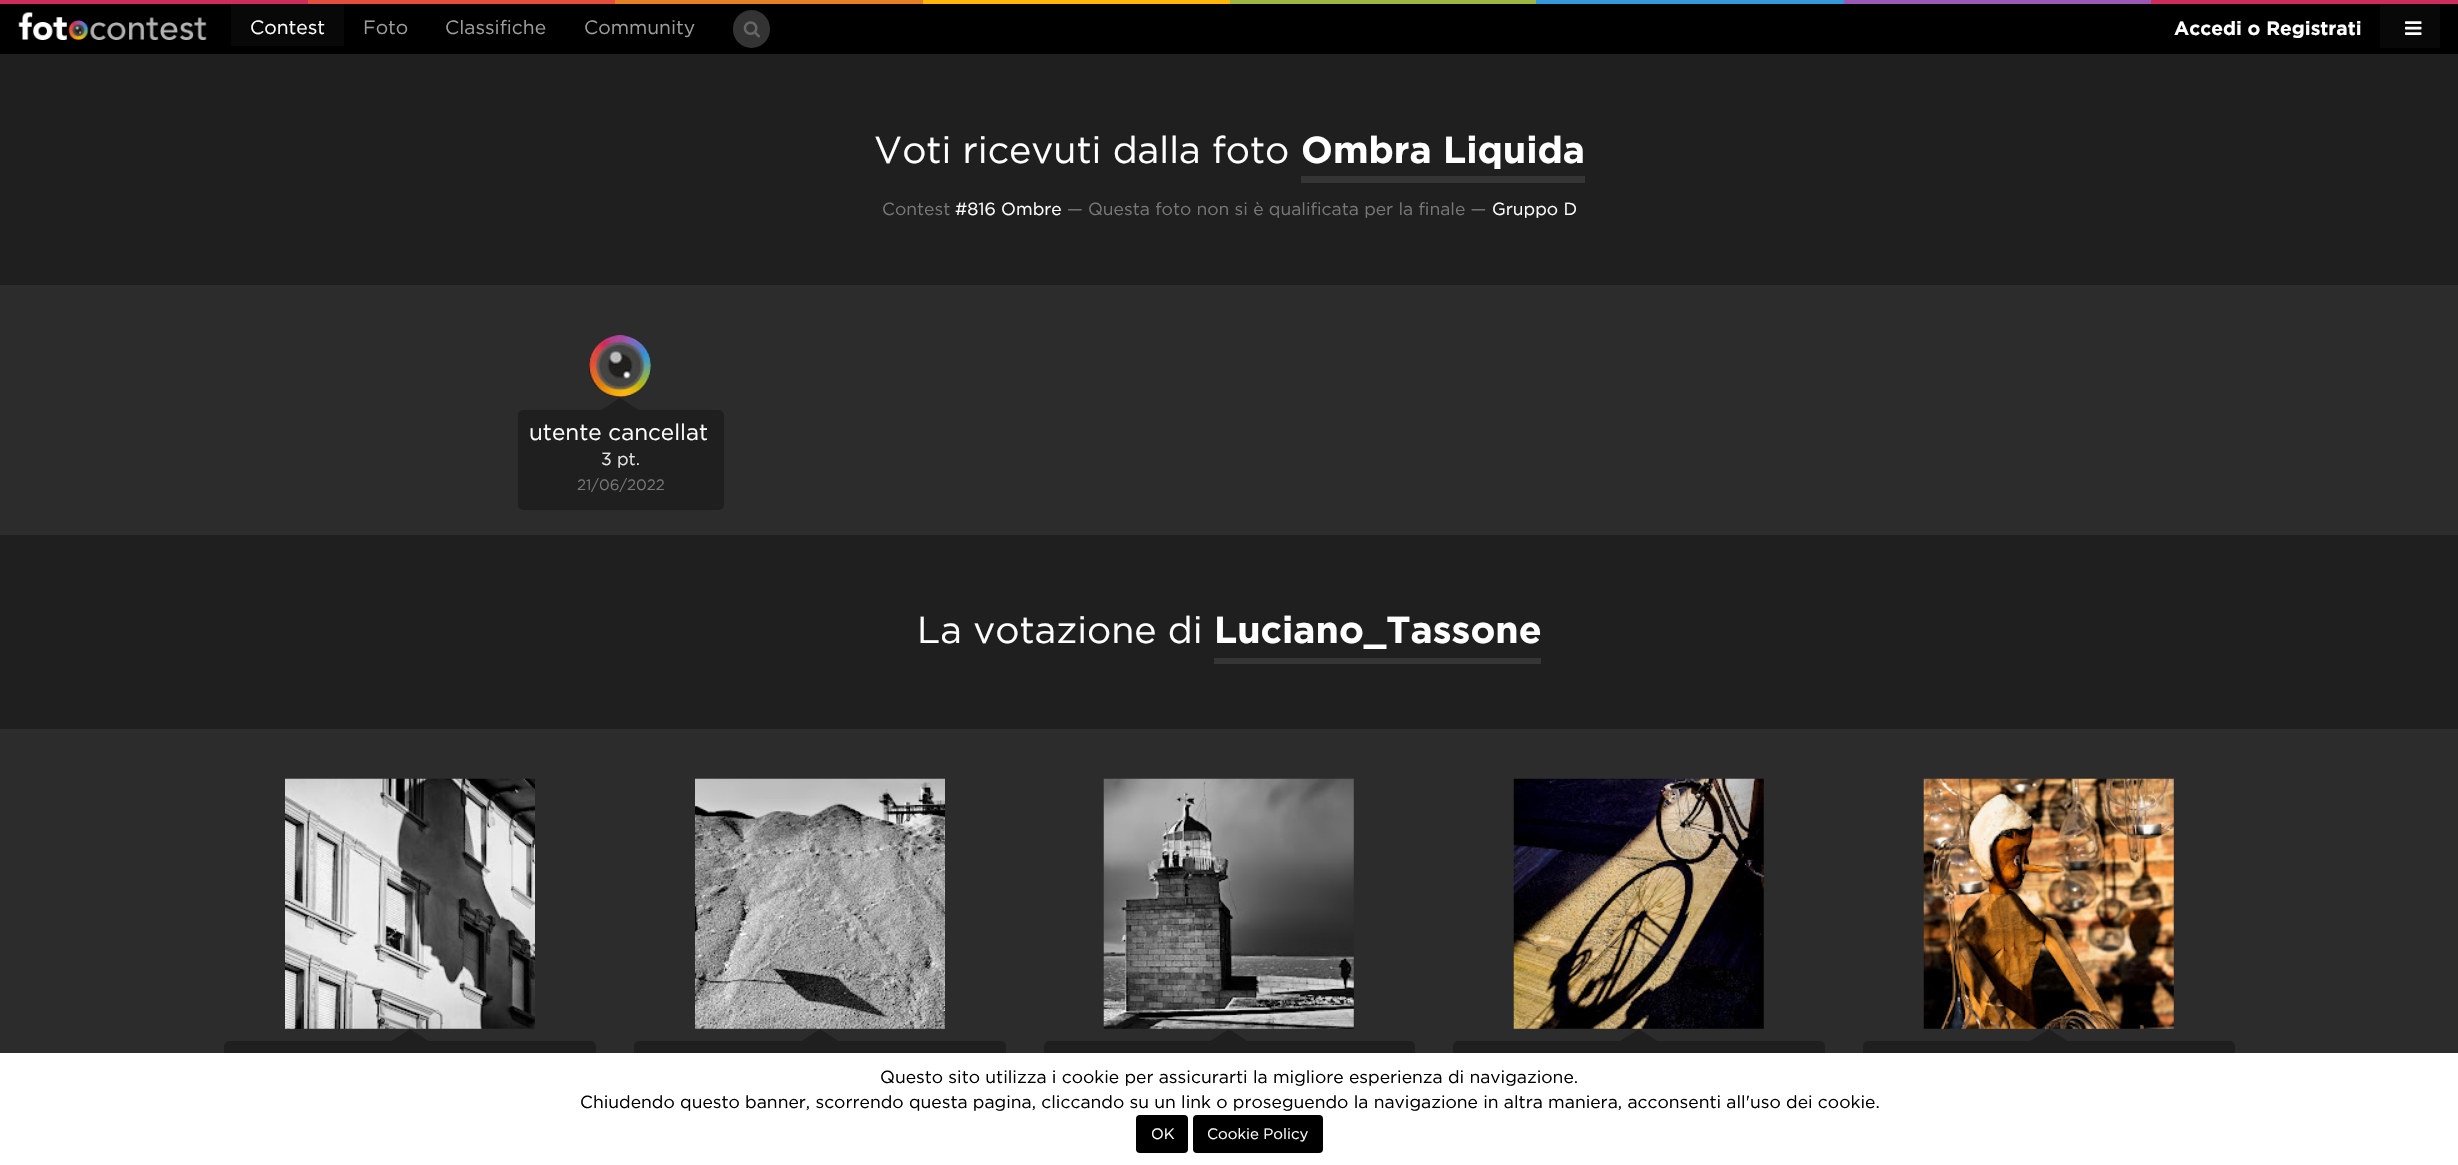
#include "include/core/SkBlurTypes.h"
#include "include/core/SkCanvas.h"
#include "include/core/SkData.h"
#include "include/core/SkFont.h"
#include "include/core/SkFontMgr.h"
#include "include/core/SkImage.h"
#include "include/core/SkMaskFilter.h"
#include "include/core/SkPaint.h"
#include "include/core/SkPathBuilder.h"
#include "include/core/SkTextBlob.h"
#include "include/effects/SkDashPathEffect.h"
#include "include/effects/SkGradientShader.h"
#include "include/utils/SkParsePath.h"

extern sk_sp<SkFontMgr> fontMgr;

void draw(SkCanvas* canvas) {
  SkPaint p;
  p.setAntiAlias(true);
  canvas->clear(SkColorSetRGB(44, 44, 44));
  p.setColor(SK_ColorBLACK);
  canvas->drawRect(SkRect::MakeLTRB(0, 4, 2458, 54), p);
  p.setColor(SkColorSetRGB(209, 43, 93));
  canvas->drawRect(SkRect::MakeLTRB(0, 0, 308, 4), p);
  p.setColor(SkColorSetRGB(231, 76, 60));
  canvas->drawRect(SkRect::MakeLTRB(308, 0, 615, 4), p);
  p.setColor(SkColorSetRGB(230, 126, 34));
  canvas->drawRect(SkRect::MakeLTRB(615, 0, 923, 4), p);
  p.setColor(SkColorSetRGB(255, 182, 6));
  canvas->drawRect(SkRect::MakeLTRB(923, 0, 1230, 4), p);
  p.setColor(SkColorSetRGB(156, 182, 65));
  canvas->drawRect(SkRect::MakeLTRB(1230, 0, 1536, 4), p);
  p.setColor(SkColorSetRGB(52, 152, 219));
  canvas->drawRect(SkRect::MakeLTRB(1536, 0, 1844, 4), p);
  p.setColor(SkColorSetRGB(155, 89, 182));
  canvas->drawRect(SkRect::MakeLTRB(1844, 0, 2151, 4), p);
  p.setColor(SkColorSetRGB(209, 43, 93));
  canvas->drawRect(SkRect::MakeLTRB(2151, 0, 2458, 4), p);
  canvas->drawImageRect(SkImages::DeferredFromEncodedData(SkData::MakeFromFileName("images/1.png")), SkRect::MakeLTRB(18, 12, 207, 40), SkSamplingOptions());
  p.setColor(SkColorSetRGB(8, 8, 8));
  canvas->drawRect(SkRect::MakeLTRB(231, 4, 344, 46), p);
  p.setColor(SkColorSetRGB(51, 51, 51));
  canvas->drawRoundRect(SkRect::MakeLTRB(733, 10, 770, 48), 18.5f, 18.5f, p);
  p.setColor(SkColorSetARGB(18, 0, 0, 0));
  canvas->drawPath(SkPathBuilder().moveTo(751, 11).cubicTo(766, 11, 772, 24.5f, 769, 35).cubicTo(770.5f, 30.5f, 770.5f, 25.5f, 768.5f, 21.5f).cubicTo(760.5f, 2.5f, 732.5f, 8, 733, 29.5f).cubicTo(733, 20.5f, 739, 11, 751, 11).close().detach(), p);
  canvas->drawImageRect(SkImages::DeferredFromEncodedData(SkData::MakeFromFileName("images/2.png")), SkRect::MakeLTRB(743, 21, 760, 38), SkSamplingOptions());
  p.setColor(SkColorSetRGB(8, 8, 8));
  canvas->drawRect(SkRect::MakeLTRB(2380, 4, 2440, 48), p);
  canvas->drawImageRect(SkImages::DeferredFromEncodedData(SkData::MakeFromFileName("images/3.png")), SkRect::MakeLTRB(2405, 21, 2422, 35), SkSamplingOptions());
  p.setColor(SkColorSetRGB(31, 31, 31));
  canvas->drawRect(SkRect::MakeLTRB(0, 54, 2458, 285), p);
  p.setColor(SkColorSetRGB(53, 53, 53));
  canvas->drawRect(SkRect::MakeLTRB(1301, 176, 1585, 183), p);
  p.setColor(SkColorSetRGB(31, 31, 31));
  canvas->drawPath(SkPathBuilder().moveTo(638.5f, 410).lineTo(601.5f, 410).lineTo(620, 397.5f).close().detach(), p);
  canvas->drawImageRect(SkImages::DeferredFromEncodedData(SkData::MakeFromFileName("images/4.png")), SkRect::MakeLTRB(588, 335, 652, 398), SkSamplingOptions());
  canvas->drawRoundRect(SkRect::MakeLTRB(518, 410, 724, 510), 5, 5, p);
  canvas->drawRect(SkRect::MakeLTRB(0, 535, 2458, 729), p);
  p.setColor(SkColorSetRGB(53, 53, 53));
  canvas->drawRect(SkRect::MakeLTRB(1214, 658, 1541, 664), p);
  canvas->drawImageRect(SkImages::DeferredFromEncodedData(SkData::MakeFromFileName("images/5.png")), SkRect::MakeLTRB(285, 778, 535, 1029), SkSamplingOptions());
  p.setColor(SkColorSetRGB(31, 31, 31));
  canvas->drawRoundRect(SkRect::MakeLTRB(224, 1041, 596, 1143), 5, 5, p);
  canvas->drawPath(SkPathBuilder().moveTo(428.5f, 1041).lineTo(391.5f, 1041).lineTo(410, 1029).close().detach(), p);
  canvas->drawImageRect(SkImages::DeferredFromEncodedData(SkData::MakeFromFileName("images/6.png")), SkRect::MakeLTRB(695, 778, 945, 1029), SkSamplingOptions());
  canvas->drawRoundRect(SkRect::MakeLTRB(634, 1041, 1006, 1143), 5, 5, p);
  canvas->drawPath(SkPathBuilder().moveTo(838.5f, 1041).lineTo(801.5f, 1041).lineTo(820, 1029).close().detach(), p);
  canvas->drawImageRect(SkImages::DeferredFromEncodedData(SkData::MakeFromFileName("images/7.png")), SkRect::MakeLTRB(1103, 778, 1354, 1029), SkSamplingOptions());
  canvas->drawRoundRect(SkRect::MakeLTRB(1044, 1041, 1415, 1143), 5, 5, p);
  canvas->drawPath(SkPathBuilder().moveTo(1247.5f, 1041).lineTo(1210, 1041).lineTo(1229, 1029).close().detach(), p);
  canvas->drawImageRect(SkImages::DeferredFromEncodedData(SkData::MakeFromFileName("images/8.png")), SkRect::MakeLTRB(1513, 778, 1764, 1029), SkSamplingOptions());
  canvas->drawRoundRect(SkRect::MakeLTRB(1453, 1041, 1825, 1143), 5, 5, p);
  canvas->drawPath(SkPathBuilder().moveTo(1657.5f, 1041).lineTo(1620, 1041).lineTo(1639, 1029).close().detach(), p);
  canvas->drawImageRect(SkImages::DeferredFromEncodedData(SkData::MakeFromFileName("images/9.png")), SkRect::MakeLTRB(1923, 778, 2174, 1029), SkSamplingOptions());
  canvas->drawRoundRect(SkRect::MakeLTRB(1863, 1041, 2235, 1143), 5, 5, p);
  canvas->drawPath(SkPathBuilder().moveTo(2067.5f, 1041).lineTo(2030, 1041).lineTo(2049, 1029).close().detach(), p);
  p.setColor(SK_ColorWHITE);
  canvas->drawRect(SkRect::MakeLTRB(0, 1053, 2458, 1165), p);
  p.setColor(SK_ColorBLACK);
  canvas->drawRoundRect(SkRect::MakeLTRB(1136, 1115, 1188, 1153), 4, 4, p);
  canvas->drawRoundRect(SkRect::MakeLTRB(1193, 1115, 1323, 1153), 4, 4, p);
  SkFont font1(fontMgr->matchFamilyStyle("Gotham", SkFontStyle::Normal()), 19.25f);
  font1.setSubpixel(true);
  p.setColor(SK_ColorWHITE);
  canvas->drawString("Contest", 250, 34, font1, p);
  p.setColor(SkColorSetRGB(157, 157, 157));
  canvas->drawString("Foto", 363, 34, font1, p);
  canvas->drawString("Classifiche", 445, 34, font1, p);
  canvas->drawString("Community", 584, 34, font1, p);
  SkFont font2(fontMgr->matchFamilyStyle("Gotham", SkFontStyle::Bold()), 19.25f);
  font2.setSubpixel(true);
  p.setColor(SK_ColorWHITE);
  canvas->drawString("Accedi o Registrati", 2174, 35, font2, p);
  SkFont font3(fontMgr->matchFamilyStyle("Gotham", SkFontStyle::Normal()), 37.5f);
  font3.setSubpixel(true);
  canvas->drawString("Voti ricevuti dalla foto", 874, 163, font3, p);
  SkFont font4(fontMgr->matchFamilyStyle("Gotham", SkFontStyle::Bold()), 37.5f);
  font4.setSubpixel(true);
  canvas->drawString("Ombra Liquida", 1301, 163, font4, p);
  SkFont font5(fontMgr->matchFamilyStyle("Gotham", SkFontStyle::Normal()), 17.5f);
  font5.setSubpixel(true);
  p.setColor(SkColorSetRGB(119, 119, 119));
  canvas->drawString("Contest", 882, 215, font5, p);
  p.setColor(SK_ColorWHITE);
  canvas->drawString("#816 Ombre", 955, 215, font5, p);
  p.setColor(SkColorSetRGB(119, 119, 119));
  canvas->drawString("— Questa foto non si è qualificata per la finale —", 1067, 215, font5, p);
  p.setColor(SK_ColorWHITE);
  canvas->drawString("Gruppo D", 1492, 215, font5, p);
  SkFont font6(fontMgr->matchFamilyStyle("Gotham", SkFontStyle::Normal()), 22.5f);
  font6.setSubpixel(true);
  canvas->drawString("utente cancellat", 529, 440, font6, p);
  p.setColor(SkColorSetRGB(230, 230, 230));
  canvas->drawString("3 pt.", 601, 465, font5, p);
  SkFont font7(fontMgr->matchFamilyStyle("Gotham", SkFontStyle::Normal()), 15);
  font7.setSubpixel(true);
  p.setColor(SkColorSetRGB(119, 119, 119));
  canvas->drawString("21/06/2022", 577, 490, font7, p);
  p.setColor(SK_ColorWHITE);
  canvas->drawString("La votazione di", 917, 643, font3, p);
  canvas->drawString("Luciano_Tassone", 1214, 643, font4, p);
  p.setColor(SK_ColorBLACK);
  canvas->drawString("Questo sito utilizza i cookie per assicurarti la migliore esperienza di navigazione.", 880, 1083, font5, p);
  canvas->drawString("Chiudendo questo banner, scorrendo questa pagina, cliccando su un link o proseguendo la navigazione in altra maniera, acconsenti all'uso dei cookie.", 580, 1108, font5, p);
  p.setColor(SK_ColorWHITE);
  canvas->drawString("OK", 1151, 1139, font7, p);
  canvas->drawString("Cookie Policy", 1207, 1139, font7, p);
}
